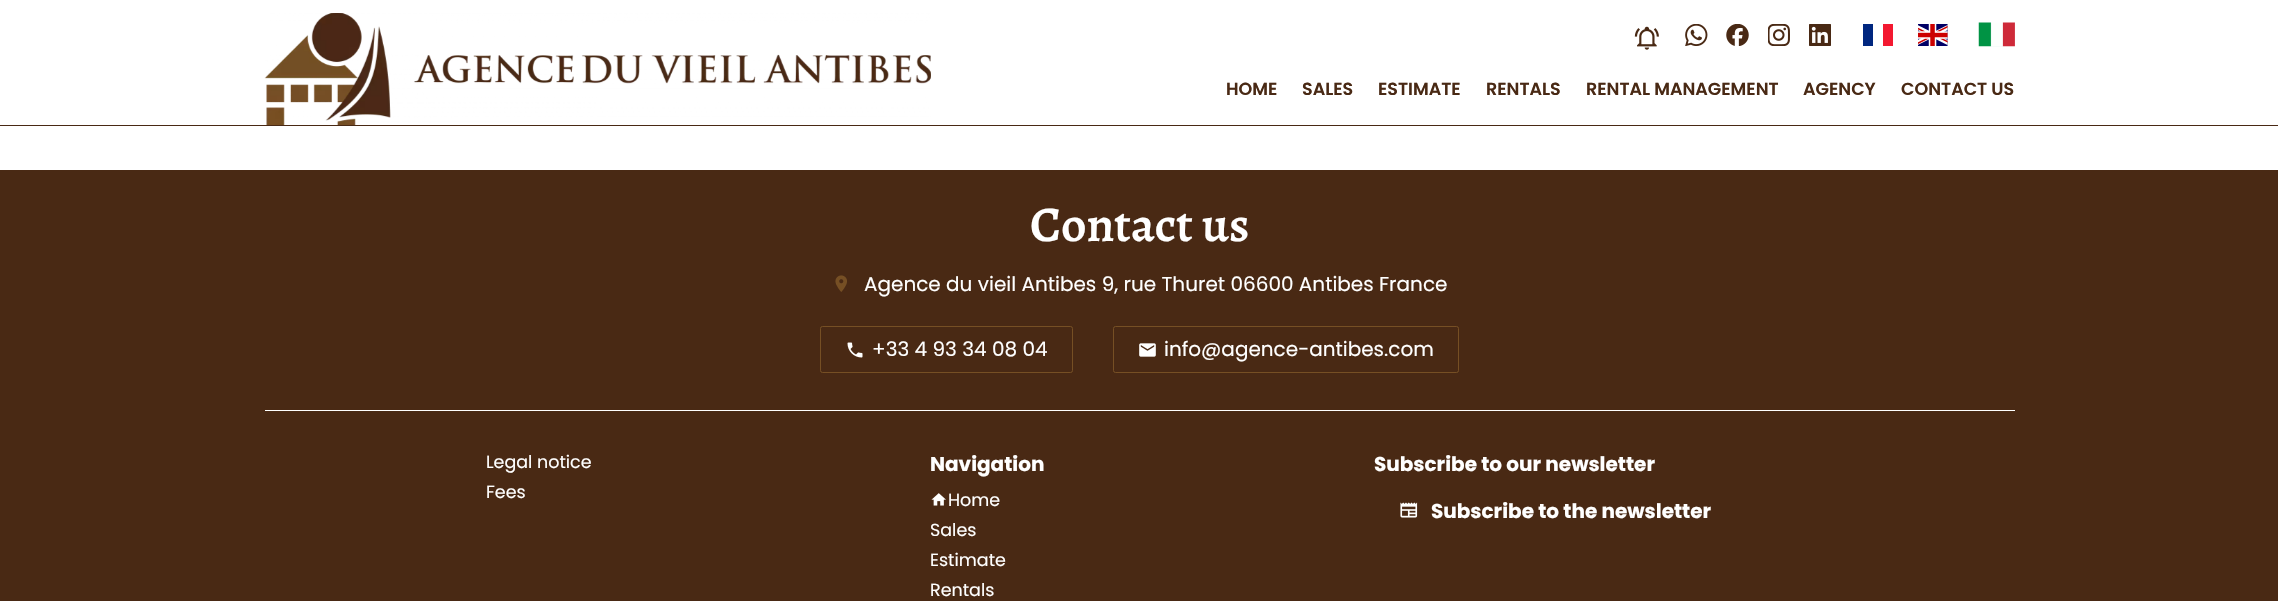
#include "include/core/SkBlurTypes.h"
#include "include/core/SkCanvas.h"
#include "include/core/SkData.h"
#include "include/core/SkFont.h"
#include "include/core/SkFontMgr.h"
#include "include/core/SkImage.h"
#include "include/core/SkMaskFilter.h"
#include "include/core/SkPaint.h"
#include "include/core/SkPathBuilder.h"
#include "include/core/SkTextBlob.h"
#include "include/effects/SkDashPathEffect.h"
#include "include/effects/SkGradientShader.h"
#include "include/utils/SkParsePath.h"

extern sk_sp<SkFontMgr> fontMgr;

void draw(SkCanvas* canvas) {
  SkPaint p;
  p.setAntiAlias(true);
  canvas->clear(SK_ColorWHITE);
  p.setColor(SkColorSetRGB(73, 41, 20));
  canvas->drawRect(SkRect::MakeLTRB(0, 125, 2278, 126), p);
  canvas->drawImageRect(SkImages::DeferredFromEncodedData(SkData::MakeFromFileName("images/1.png")), SkRect::MakeLTRB(264, 13, 931, 125), SkSamplingOptions());
  canvas->drawImageRect(SkImages::DeferredFromEncodedData(SkData::MakeFromFileName("images/2.png")), SkRect::MakeLTRB(1634, 26, 1659, 50), SkSamplingOptions());
  canvas->drawImageRect(SkImages::DeferredFromEncodedData(SkData::MakeFromFileName("images/3.png")), SkRect::MakeLTRB(1685, 24, 1708, 46), SkSamplingOptions());
  canvas->drawImageRect(SkImages::DeferredFromEncodedData(SkData::MakeFromFileName("images/4.png")), SkRect::MakeLTRB(1726, 24, 1749, 46), SkSamplingOptions());
  canvas->drawImageRect(SkImages::DeferredFromEncodedData(SkData::MakeFromFileName("images/5.png")), SkRect::MakeLTRB(1768, 24, 1790, 46), SkSamplingOptions());
  canvas->drawImageRect(SkImages::DeferredFromEncodedData(SkData::MakeFromFileName("images/6.png")), SkRect::MakeLTRB(1809, 24, 1831, 46), SkSamplingOptions());
  p.setColor(SkColorSetRGB(0, 38, 127));
  canvas->drawRect(SkRect::MakeLTRB(1863, 24, 1873, 46), p);
  p.setColor(SkColorSetRGB(243, 24, 48));
  canvas->drawRect(SkRect::MakeLTRB(1883, 24, 1893, 46), p);
  canvas->drawImageRect(SkImages::DeferredFromEncodedData(SkData::MakeFromFileName("images/7.png")), SkRect::MakeLTRB(1918, 24, 1948, 46), SkSamplingOptions());
  canvas->drawImageRect(SkImages::DeferredFromEncodedData(SkData::MakeFromFileName("images/8.png")), SkRect::MakeLTRB(1978, 22, 2015, 47), SkSamplingOptions());
  p.setColor(SkColorSetRGB(73, 41, 20));
  canvas->drawRect(SkRect::MakeLTRB(0, 170, 2278, 601), p);
  canvas->drawImageRect(SkImages::DeferredFromEncodedData(SkData::MakeFromFileName("images/9.png")), SkRect::MakeLTRB(835, 275, 847, 292), SkSamplingOptions());
  p.setStyle(SkPaint::kStroke_Style);
  p.setStrokeWidth(1);
  p.setColor(SkColorSetRGB(118, 79, 36));
  canvas->drawRoundRect(SkRect::MakeLTRB(820.5f, 326.5f, 1072.5f, 372.5f), 2, 2, p);
  canvas->drawImageRect(SkImages::DeferredFromEncodedData(SkData::MakeFromFileName("images/10.png")), SkRect::MakeLTRB(847, 342, 863, 358), SkSamplingOptions());
  canvas->drawRoundRect(SkRect::MakeLTRB(1113.5f, 326.5f, 1458.5f, 372.5f), 2, 2, p);
  canvas->drawImageRect(SkImages::DeferredFromEncodedData(SkData::MakeFromFileName("images/11.png")), SkRect::MakeLTRB(1139, 343, 1156, 357), SkSamplingOptions());
  p.setStyle(SkPaint::kFill_Style);
  p.setColor(SK_ColorWHITE);
  canvas->drawRect(SkRect::MakeLTRB(265, 410, 2015, 411), p);
  canvas->drawImageRect(SkImages::DeferredFromEncodedData(SkData::MakeFromFileName("images/12.png")), SkRect::MakeLTRB(931, 493, 946, 506), SkSamplingOptions());
  canvas->drawImageRect(SkImages::DeferredFromEncodedData(SkData::MakeFromFileName("images/13.png")), SkRect::MakeLTRB(1400, 502, 1418, 518), SkSamplingOptions());
  SkFont font1(fontMgr->matchFamilyStyle("Poppins", SkFontStyle(600, SkFontStyle::kNormal_Width, SkFontStyle::kUpright_Slant)), 17.5f);
  font1.setSubpixel(true);
  p.setColor(SkColorSetRGB(73, 41, 20));
  canvas->drawString("HOME", 1226, 95, font1, p);
  canvas->drawString("SALES", 1302, 95, font1, p);
  canvas->drawString("ESTIMATE", 1378, 95, font1, p);
  canvas->drawString("RENTALS", 1486, 95, font1, p);
  canvas->drawString("RENTAL MANAGEMENT", 1586, 95, font1, p);
  canvas->drawString("AGENCY", 1803, 95, font1, p);
  canvas->drawString("CONTACT US", 1901, 95, font1, p);
  SkFont font2(fontMgr->matchFamilyStyle("Alegreya", SkFontStyle(600, SkFontStyle::kNormal_Width, SkFontStyle::kUpright_Slant)), 50);
  font2.setSubpixel(true);
  p.setColor(SK_ColorWHITE);
  canvas->drawString("Contact us", 1030, 241, font2, p);
  SkFont font3(fontMgr->matchFamilyStyle("Poppins", SkFontStyle::Normal()), 20);
  font3.setSubpixel(true);
  canvas->drawString("Agence du vieil Antibes 9, rue Thuret 06600 Antibes France", 864, 291, font3, p);
  canvas->drawString("+33 4 93 34 08 04", 872, 356, font3, p);
  canvas->drawString("info@agence-antibes.com", 1164, 356, font3, p);
  SkFont font4(fontMgr->matchFamilyStyle("Poppins", SkFontStyle::Normal()), 17.5f);
  font4.setSubpixel(true);
  canvas->drawString("Legal notice", 486, 468, font4, p);
  canvas->drawString("Fees", 486, 498, font4, p);
  SkFont font5(fontMgr->matchFamilyStyle("Poppins", SkFontStyle::Bold()), 20);
  font5.setSubpixel(true);
  canvas->drawString("Navigation", 930, 471, font5, p);
  canvas->drawString("Home", 948, 506, font4, p);
  canvas->drawString("Sales", 930, 536, font4, p);
  canvas->drawString("Estimate", 930, 566, font4, p);
  canvas->drawString("Rentals", 930, 596, font4, p);
  canvas->drawString("Subscribe to our newsletter", 1374, 471, font5, p);
  canvas->drawString("Subscribe to the newsletter", 1431, 518, font5, p);
}
